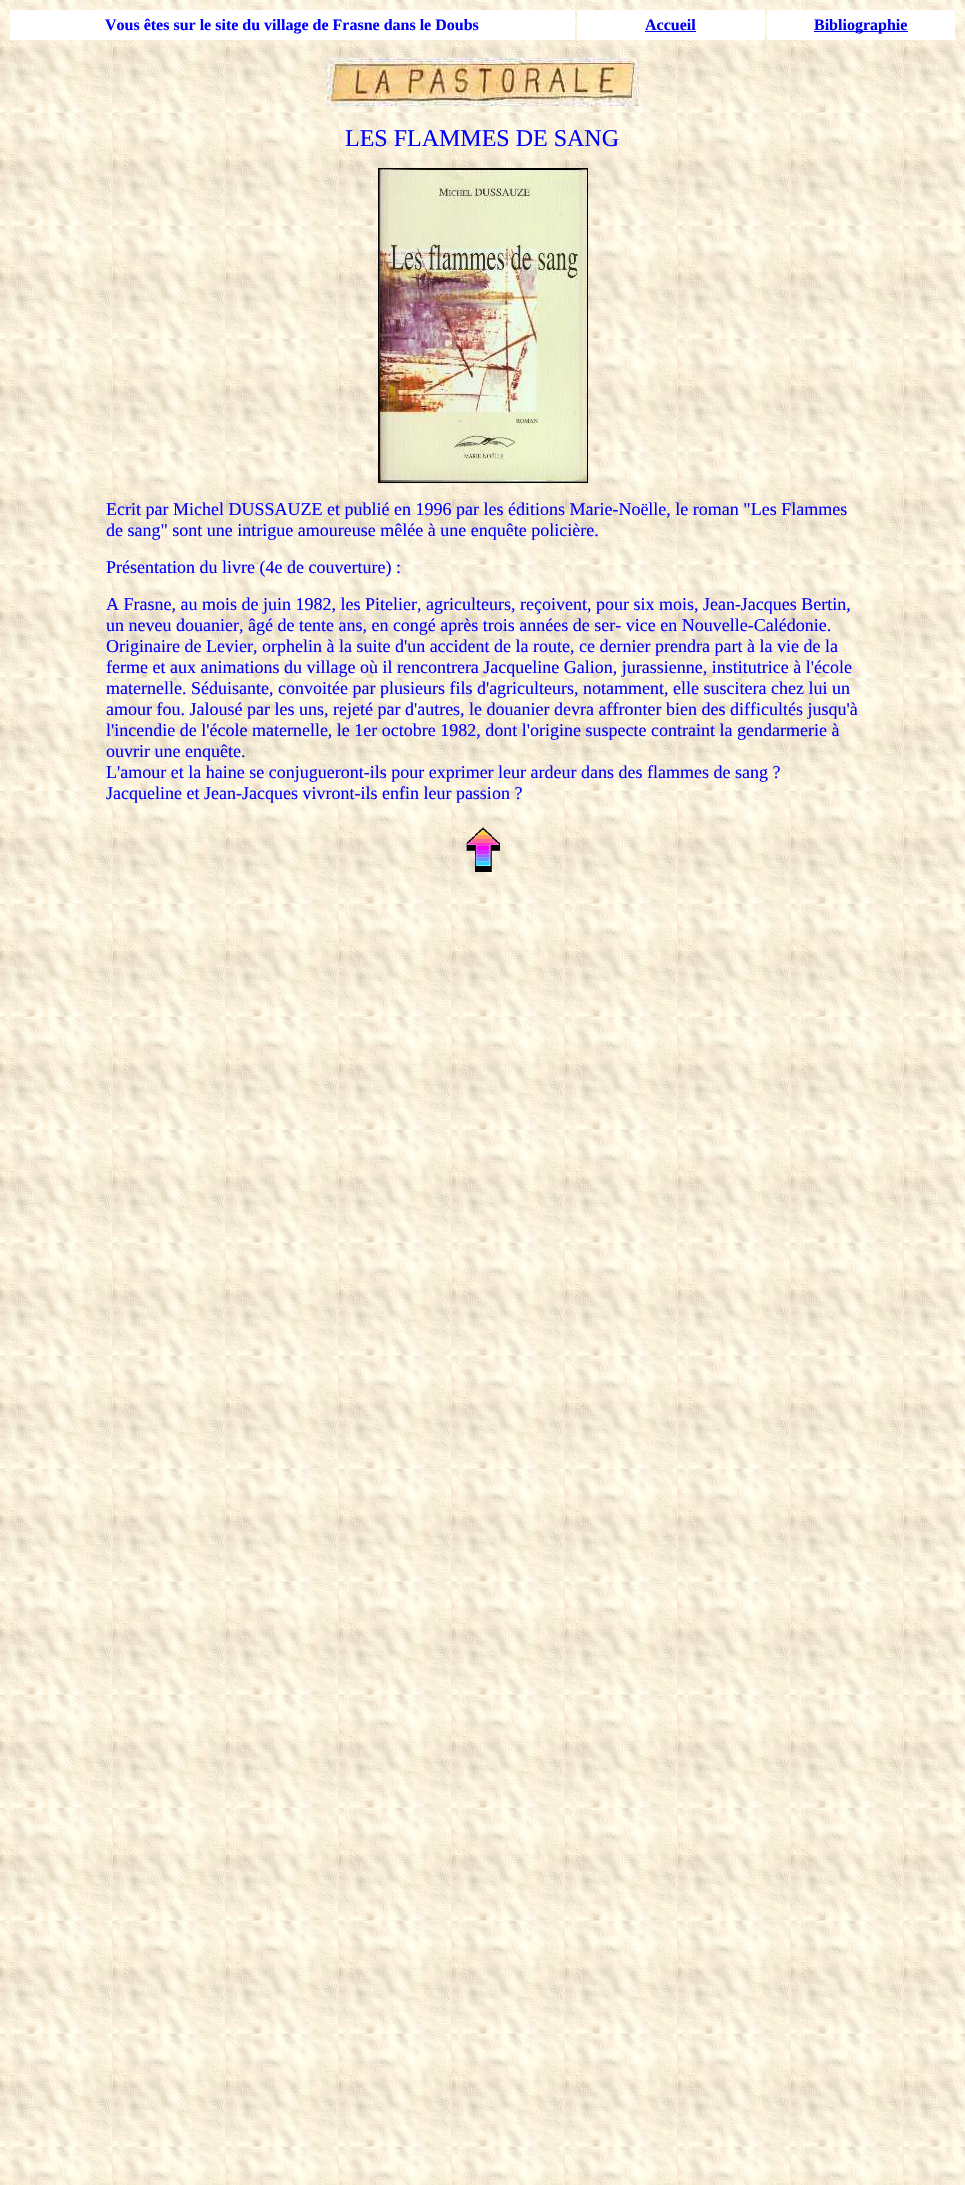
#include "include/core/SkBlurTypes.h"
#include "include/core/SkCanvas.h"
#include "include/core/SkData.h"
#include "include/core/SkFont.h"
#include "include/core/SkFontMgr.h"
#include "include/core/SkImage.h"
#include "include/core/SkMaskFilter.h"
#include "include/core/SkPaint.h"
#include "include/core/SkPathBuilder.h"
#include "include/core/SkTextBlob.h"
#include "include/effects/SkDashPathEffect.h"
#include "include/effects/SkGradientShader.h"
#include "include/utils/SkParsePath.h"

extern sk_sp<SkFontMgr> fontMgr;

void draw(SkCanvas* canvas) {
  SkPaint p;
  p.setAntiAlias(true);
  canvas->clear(SK_ColorWHITE);
  canvas->drawImageRect(SkImages::DeferredFromEncodedData(SkData::MakeFromFileName("images/1.png")), SkRect::MakeLTRB(0, 0, 965, 2185), SkSamplingOptions());
  p.setColor(SK_ColorWHITE);
  canvas->drawRect(SkRect::MakeLTRB(10, 10, 575, 40), p);
  canvas->drawRect(SkRect::MakeLTRB(577, 10, 765, 40), p);
  p.setColor(SkColorSetRGB(0, 0, 238));
  canvas->drawRect(SkRect::MakeLTRB(645, 31, 696, 32), p);
  p.setColor(SK_ColorWHITE);
  canvas->drawRect(SkRect::MakeLTRB(767, 10, 955, 40), p);
  p.setColor(SkColorSetRGB(0, 0, 238));
  canvas->drawRect(SkRect::MakeLTRB(814, 31, 908, 32), p);
  canvas->drawImageRect(SkImages::DeferredFromEncodedData(SkData::MakeFromFileName("images/2.png")), SkRect::MakeLTRB(327, 58, 639, 106), SkSamplingOptions());
  p.setStyle(SkPaint::kStroke_Style);
  p.setStrokeWidth(1);
  p.setColor(SK_ColorBLACK);
  canvas->drawRect(SkRect::MakeLTRB(378.5f, 168.5f, 587.5f, 482.5f), p);
  canvas->drawImageRect(SkImages::DeferredFromEncodedData(SkData::MakeFromFileName("images/3.png")), SkRect::MakeLTRB(379, 169, 587, 482), SkSamplingOptions());
  canvas->drawImageRect(SkImages::DeferredFromEncodedData(SkData::MakeFromFileName("images/4.png")), SkRect::MakeLTRB(466, 827, 500, 872), SkSamplingOptions());
  SkFont font1(fontMgr->matchFamilyStyle("Liberation Serif", SkFontStyle::Bold()), 16);
  font1.setSubpixel(true);
  p.setStyle(SkPaint::kFill_Style);
  p.setColor(SkColorSetRGB(0, 0, 255));
  canvas->drawString("Vous êtes sur le site du village de Frasne dans le Doubs", 105, 30, font1, p);
  p.setColor(SkColorSetRGB(0, 0, 238));
  canvas->drawString("Accueil", 645, 30, font1, p);
  canvas->drawString("Bibliographie", 814, 30, font1, p);
  SkFont font2(fontMgr->matchFamilyStyle("Liberation Serif", SkFontStyle::Normal()), 24);
  font2.setSubpixel(true);
  p.setColor(SkColorSetRGB(0, 0, 255));
  canvas->drawString("LES FLAMMES DE SANG", 345, 146, font2, p);
  SkFont font3(fontMgr->matchFamilyStyle("Liberation Serif", SkFontStyle::Normal()), 18);
  font3.setSubpixel(true);
  canvas->drawString("Ecrit par Michel DUSSAUZE et publié en 1996 par les éditions Marie-Noëlle, le roman \"Les Flammes", 106, 515, font3, p);
  canvas->drawString("de sang\" sont une intrigue amoureuse mêlée à une enquête policière.", 106, 536, font3, p);
  canvas->drawString("Présentation du livre (4e de couverture) :", 106, 573, font3, p);
  canvas->drawString("A Frasne, au mois de juin 1982, les Pitelier, agriculteurs, reçoivent, pour six mois, Jean-Jacques Bertin,", 106, 610, font3, p);
  canvas->drawString("un neveu douanier, âgé de tente ans, en congé après trois années de ser- vice en Nouvelle-Calédonie.", 106, 631, font3, p);
  canvas->drawString("Originaire de Levier, orphelin à la suite d'un accident de la route, ce dernier prendra part à la vie de la", 106, 652, font3, p);
  canvas->drawString("ferme et aux animations du village où il rencontrera Jacqueline Galion, jurassienne, institutrice à l'école", 106, 673, font3, p);
  canvas->drawString("maternelle. Séduisante, convoitée par plusieurs fils d'agriculteurs, notamment, elle suscitera chez lui un", 106, 694, font3, p);
  canvas->drawString("amour fou. Jalousé par les uns, rejeté par d'autres, le douanier devra affronter bien des difficultés jusqu'à", 106, 715, font3, p);
  canvas->drawString("l'incendie de l'école maternelle, le 1er octobre 1982, dont l'origine suspecte contraint la gendarmerie à", 106, 736, font3, p);
  canvas->drawString("ouvrir une enquête.", 106, 757, font3, p);
  canvas->drawString("L'amour et la haine se conjugueront-ils pour exprimer leur ardeur dans des flammes de sang ?", 106, 778, font3, p);
  canvas->drawString("Jacqueline et Jean-Jacques vivront-ils enfin leur passion ?", 106, 799, font3, p);
}
